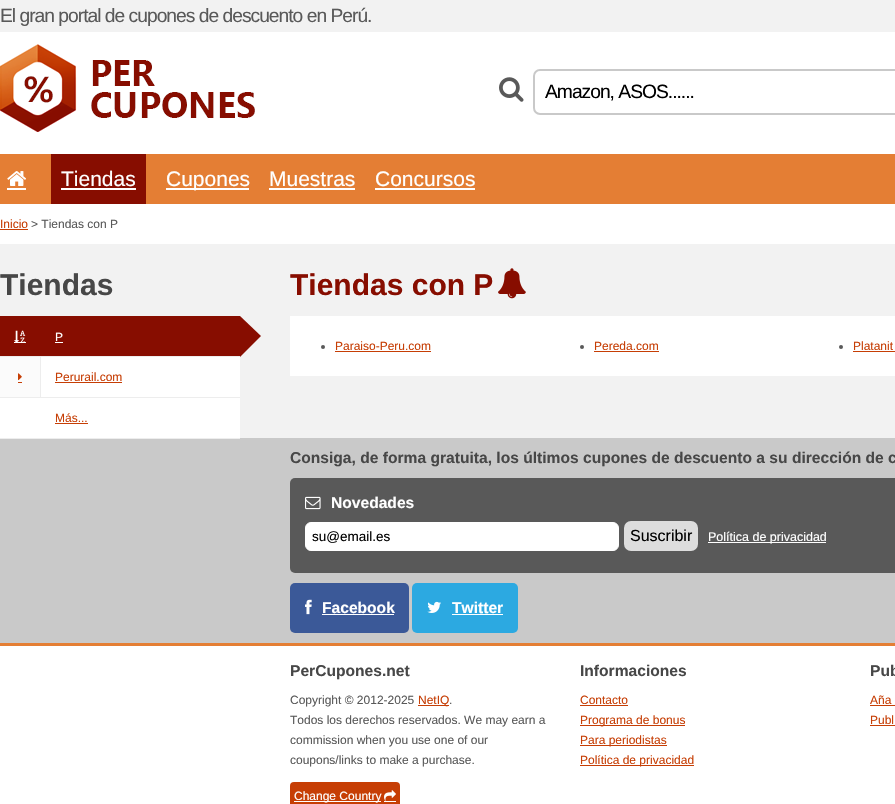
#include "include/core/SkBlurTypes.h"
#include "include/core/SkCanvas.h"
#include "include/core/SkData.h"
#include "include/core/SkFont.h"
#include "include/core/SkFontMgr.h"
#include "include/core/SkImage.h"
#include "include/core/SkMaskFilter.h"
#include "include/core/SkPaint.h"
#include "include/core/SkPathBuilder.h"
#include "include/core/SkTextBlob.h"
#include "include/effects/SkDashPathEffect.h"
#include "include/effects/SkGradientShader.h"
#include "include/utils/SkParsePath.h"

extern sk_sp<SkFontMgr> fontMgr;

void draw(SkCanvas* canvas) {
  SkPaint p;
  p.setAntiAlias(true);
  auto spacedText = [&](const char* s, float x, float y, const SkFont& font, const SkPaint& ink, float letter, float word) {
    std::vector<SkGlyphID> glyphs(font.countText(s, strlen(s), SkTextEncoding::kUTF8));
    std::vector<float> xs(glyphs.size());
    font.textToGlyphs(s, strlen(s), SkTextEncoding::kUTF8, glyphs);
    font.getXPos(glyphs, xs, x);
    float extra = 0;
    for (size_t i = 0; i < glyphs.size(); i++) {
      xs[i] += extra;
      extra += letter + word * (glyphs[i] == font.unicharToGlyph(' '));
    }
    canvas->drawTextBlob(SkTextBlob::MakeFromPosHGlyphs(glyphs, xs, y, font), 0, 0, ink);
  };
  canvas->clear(SK_ColorWHITE);
  p.setColor(SkColorSetRGB(242, 242, 242));
  canvas->drawRect(SkRect::MakeLTRB(0, 0, 895, 32), p);
  canvas->drawRect(SkRect::MakeLTRB(0, 244, 895, 438), p);
  canvas->drawImageRect(SkImages::DeferredFromEncodedData(SkData::MakeFromFileName("images/1.png")), SkRect::MakeLTRB(0, 44, 255, 132), SkSamplingOptions());
  canvas->drawImageRect(SkImages::DeferredFromEncodedData(SkData::MakeFromFileName("images/2.png")), SkRect::MakeLTRB(499, 77, 524, 102), SkSamplingOptions());
  p.setStyle(SkPaint::kStroke_Style);
  p.setStrokeWidth(2);
  p.setColor(SkColorSetRGB(201, 201, 201));
  canvas->drawRoundRect(SkRect::MakeLTRB(534, 70, 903, 114), 6, 6, p);
  p.setStyle(SkPaint::kFill_Style);
  p.setColor(SkColorSetRGB(228, 126, 52));
  canvas->drawRect(SkRect::MakeLTRB(0, 154, 895, 204), p);
  canvas->drawImageRect(SkImages::DeferredFromEncodedData(SkData::MakeFromFileName("images/3.png")), SkRect::MakeLTRB(7, 171, 26, 186), SkSamplingOptions());
  p.setColor(SK_ColorWHITE);
  canvas->drawRect(SkRect::MakeLTRB(7, 188, 26, 190), p);
  p.setColor(SkColorSetRGB(135, 13, 0));
  canvas->drawRect(SkRect::MakeLTRB(51, 154, 146, 204), p);
  p.setColor(SK_ColorWHITE);
  canvas->drawRect(SkRect::MakeLTRB(61, 188, 136, 190), p);
  canvas->drawRect(SkRect::MakeLTRB(166, 188, 249, 190), p);
  canvas->drawRect(SkRect::MakeLTRB(269, 188, 355, 190), p);
  canvas->drawRect(SkRect::MakeLTRB(375, 188, 475, 190), p);
  p.setColor(SkColorSetRGB(198, 62, 5));
  canvas->drawRect(SkRect::MakeLTRB(0, 229, 28, 230), p);
  p.setColor(SkColorSetRGB(135, 13, 0));
  canvas->drawRect(SkRect::MakeLTRB(0, 316, 240, 356), p);
  canvas->drawImageRect(SkImages::DeferredFromEncodedData(SkData::MakeFromFileName("images/4.png")), SkRect::MakeLTRB(14, 330, 26, 342), SkSamplingOptions());
  p.setColor(SK_ColorWHITE);
  canvas->drawRect(SkRect::MakeLTRB(14, 342, 26, 343), p);
  canvas->drawRect(SkRect::MakeLTRB(55, 342, 63, 343), p);
  p.setColor(SkColorSetRGB(135, 13, 0));
  canvas->drawPath(SkPathBuilder().moveTo(240, 316).lineTo(261, 336).lineTo(240, 357).lineTo(220, 336).close().detach(), p);
  p.setColor(SK_ColorWHITE);
  canvas->drawRect(SkRect::MakeLTRB(41, 357, 240, 397), p);
  p.setColor(SkColorSetRGB(237, 237, 237));
  canvas->drawRect(SkRect::MakeLTRB(0, 356, 240, 357), p);
  p.setColor(SkColorSetRGB(251, 251, 251));
  canvas->drawRect(SkRect::MakeLTRB(0, 357, 40, 397), p);
  p.setColor(SkColorSetRGB(237, 237, 237));
  canvas->drawRect(SkRect::MakeLTRB(40, 357, 41, 397), p);
  canvas->drawImageRect(SkImages::DeferredFromEncodedData(SkData::MakeFromFileName("images/5.png")), SkRect::MakeLTRB(18, 373, 22, 381), SkSamplingOptions());
  p.setColor(SkColorSetRGB(198, 62, 5));
  canvas->drawRect(SkRect::MakeLTRB(18, 382, 22, 383), p);
  canvas->drawRect(SkRect::MakeLTRB(55, 382, 122, 383), p);
  p.setColor(SK_ColorWHITE);
  canvas->drawRect(SkRect::MakeLTRB(0, 398, 240, 438), p);
  p.setColor(SkColorSetRGB(237, 237, 237));
  canvas->drawRect(SkRect::MakeLTRB(0, 397, 240, 398), p);
  p.setColor(SkColorSetRGB(201, 201, 201));
  canvas->drawRect(SkRect::MakeLTRB(0, 438, 895, 643), p);
  p.setColor(SkColorSetRGB(237, 237, 237));
  canvas->drawRect(SkRect::MakeLTRB(0, 438, 240, 439), p);
  p.setColor(SkColorSetRGB(198, 62, 5));
  canvas->drawRect(SkRect::MakeLTRB(55, 423, 88, 424), p);
  canvas->drawImageRect(SkImages::DeferredFromEncodedData(SkData::MakeFromFileName("images/6.png")), SkRect::MakeLTRB(498, 268, 526, 299), SkSamplingOptions());
  p.setColor(SK_ColorWHITE);
  canvas->drawRect(SkRect::MakeLTRB(290, 316, 895, 376), p);
  p.setColor(SkColorSetRGB(89, 89, 89));
  canvas->drawCircle(323, 347, 2, p);
  p.setColor(SkColorSetRGB(198, 62, 5));
  canvas->drawRect(SkRect::MakeLTRB(335, 351, 431, 352), p);
  p.setColor(SkColorSetRGB(89, 89, 89));
  canvas->drawCircle(582, 347, 2, p);
  p.setColor(SkColorSetRGB(198, 62, 5));
  canvas->drawRect(SkRect::MakeLTRB(594, 351, 659, 352), p);
  p.setColor(SkColorSetRGB(89, 89, 89));
  canvas->drawCircle(841, 347, 2, p);
  p.setColor(SkColorSetRGB(198, 62, 5));
  canvas->drawRect(SkRect::MakeLTRB(853, 351, 895, 352), p);
  p.setColor(SkColorSetRGB(89, 89, 89));
  canvas->drawRoundRect(SkRect::MakeLTRB(290, 478, 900, 573), 5, 5, p);
  canvas->drawImageRect(SkImages::DeferredFromEncodedData(SkData::MakeFromFileName("images/7.png")), SkRect::MakeLTRB(305, 496, 321, 510), SkSamplingOptions());
  p.setColor(SK_ColorWHITE);
  canvas->drawRoundRect(SkRect::MakeLTRB(305.5f, 522.5f, 618.5f, 550.5f), 5.5f, 5.5f, p);
  p.setStyle(SkPaint::kStroke_Style);
  p.setStrokeWidth(1);
  canvas->drawRoundRect(SkRect::MakeLTRB(305.5f, 522.5f, 618.5f, 550.5f), 5.5f, 5.5f, p);
  p.setStyle(SkPaint::kFill_Style);
  p.setColor(SkColorSetRGB(221, 221, 221));
  canvas->drawRoundRect(SkRect::MakeLTRB(624, 521, 698, 551), 7, 7, p);
  p.setColor(SK_ColorWHITE);
  canvas->drawRect(SkRect::MakeLTRB(708, 542, 826, 543), p);
  p.setColor(SkColorSetRGB(59, 89, 152));
  canvas->drawRoundRect(SkRect::MakeLTRB(290, 583, 409, 633), 5, 5, p);
  canvas->drawImageRect(SkImages::DeferredFromEncodedData(SkData::MakeFromFileName("images/8.png")), SkRect::MakeLTRB(305, 599, 312, 615), SkSamplingOptions());
  p.setColor(SK_ColorWHITE);
  canvas->drawRect(SkRect::MakeLTRB(322, 614, 394, 615), p);
  p.setColor(SkColorSetRGB(44, 169, 225));
  canvas->drawRoundRect(SkRect::MakeLTRB(412, 583, 518, 633), 5, 5, p);
  canvas->drawImageRect(SkImages::DeferredFromEncodedData(SkData::MakeFromFileName("images/9.png")), SkRect::MakeLTRB(427, 601, 441, 613), SkSamplingOptions());
  p.setColor(SK_ColorWHITE);
  canvas->drawRect(SkRect::MakeLTRB(452, 614, 503, 615), p);
  p.setColor(SkColorSetRGB(228, 126, 52));
  canvas->drawRect(SkRect::MakeLTRB(0, 643, 895, 646), p);
  p.setColor(SkColorSetRGB(198, 62, 5));
  canvas->drawRect(SkRect::MakeLTRB(418, 705, 449, 706), p);
  canvas->drawRoundRect(SkRect::MakeLTRB(290, 782, 400, 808), 4, 4, p);
  p.setColor(SK_ColorWHITE);
  canvas->drawRect(SkRect::MakeLTRB(294, 801, 381, 802), p);
  canvas->drawImageRect(SkImages::DeferredFromEncodedData(SkData::MakeFromFileName("images/10.png")), SkRect::MakeLTRB(384, 790, 396, 801), SkSamplingOptions());
  canvas->drawRect(SkRect::MakeLTRB(384, 801, 396, 802), p);
  p.setColor(SkColorSetRGB(198, 62, 5));
  canvas->drawRect(SkRect::MakeLTRB(580, 705, 628, 706), p);
  canvas->drawRect(SkRect::MakeLTRB(580, 725, 685, 726), p);
  canvas->drawRect(SkRect::MakeLTRB(580, 745, 667, 746), p);
  canvas->drawRect(SkRect::MakeLTRB(580, 765, 694, 766), p);
  canvas->drawRect(SkRect::MakeLTRB(870, 705, 895, 706), p);
  canvas->drawRect(SkRect::MakeLTRB(870, 725, 895, 726), p);
  SkFont font1(fontMgr->matchFamilyStyle("Liberation Sans", SkFontStyle::Normal()), 19.25f);
  font1.setSubpixel(true);
  p.setColor(SkColorSetRGB(89, 89, 89));
  spacedText("El gran portal de cupones de descuento en Perú.", 0, 22, font1, p, -1, 0);
  p.setColor(SK_ColorBLACK);
  spacedText("Amazon, ASOS......", 545, 98, font1, p, -1, 0);
  SkFont font2(fontMgr->matchFamilyStyle("Liberation Sans", SkFontStyle::Normal()), 21);
  font2.setSubpixel(true);
  p.setColor(SK_ColorWHITE);
  canvas->drawString("Tiendas", 61, 186, font2, p);
  canvas->drawString("Cupones", 166, 186, font2, p);
  canvas->drawString("Muestras", 269, 186, font2, p);
  canvas->drawString("Concursos", 375, 186, font2, p);
  SkFont font3(fontMgr->matchFamilyStyle("Liberation Sans", SkFontStyle::Normal()), 12);
  font3.setSubpixel(true);
  p.setColor(SkColorSetRGB(198, 62, 5));
  canvas->drawString("Inicio", 0, 228, font3, p);
  p.setColor(SkColorSetRGB(89, 89, 89));
  canvas->drawString("> Tiendas con P", 31, 228, font3, p);
  SkFont font4(fontMgr->matchFamilyStyle("Liberation Sans", SkFontStyle::Bold()), 30);
  font4.setSubpixel(true);
  p.setColor(SkColorSetRGB(71, 71, 71));
  canvas->drawString("Tiendas", 0, 295, font4, p);
  p.setColor(SK_ColorWHITE);
  canvas->drawString("P", 55, 341, font3, p);
  p.setColor(SkColorSetRGB(198, 62, 5));
  canvas->drawString("Perurail.com", 55, 381, font3, p);
  canvas->drawString("Más...", 55, 422, font3, p);
  p.setColor(SkColorSetRGB(135, 13, 0));
  canvas->drawString("Tiendas con P", 290, 295, font4, p);
  p.setColor(SkColorSetRGB(198, 62, 5));
  canvas->drawString("Paraiso-Peru.com", 335, 350, font3, p);
  canvas->drawString("Pereda.com", 594, 350, font3, p);
  canvas->drawString("Platanit", 853, 350, font3, p);
  SkFont font5(fontMgr->matchFamilyStyle("Liberation Sans", SkFontStyle::Bold()), 15.6f);
  font5.setSubpixel(true);
  p.setColor(SkColorSetRGB(71, 71, 71));
  canvas->drawString("Consiga, de forma gratuita, los últimos cupones de descuento a su dirección de c", 290, 463, font5, p);
  p.setColor(SK_ColorWHITE);
  canvas->drawString("Novedades", 331, 508, font5, p);
  SkFont font6(fontMgr->matchFamilyStyle("Liberation Sans", SkFontStyle::Normal()), 13.5f);
  font6.setSubpixel(true);
  p.setColor(SK_ColorBLACK);
  canvas->drawString("su@email.es", 312, 541, font6, p);
  SkFont font7(fontMgr->matchFamilyStyle("Liberation Sans", SkFontStyle::Normal()), 16);
  font7.setSubpixel(true);
  canvas->drawString("Suscribir", 630, 541, font7, p);
  SkFont font8(fontMgr->matchFamilyStyle("Liberation Sans", SkFontStyle::Normal()), 12.5f);
  font8.setSubpixel(true);
  p.setColor(SK_ColorWHITE);
  canvas->drawString("Política de privacidad", 708, 541, font8, p);
  canvas->drawString("Facebook", 322, 613, font5, p);
  canvas->drawString("Twitter", 452, 613, font5, p);
  p.setColor(SkColorSetRGB(71, 71, 71));
  canvas->drawString("PerCupones.net", 290, 676, font5, p);
  p.setColor(SkColorSetRGB(89, 89, 89));
  canvas->drawString("Copyright © 2012-2025", 290, 704, font3, p);
  p.setColor(SkColorSetRGB(198, 62, 5));
  canvas->drawString("NetIQ", 418, 704, font3, p);
  p.setColor(SkColorSetRGB(89, 89, 89));
  canvas->drawString(".", 449, 704, font3, p);
  canvas->drawString("Todos los derechos reservados. We may earn a", 290, 724, font3, p);
  canvas->drawString("commission when you use one of our", 290, 744, font3, p);
  canvas->drawString("coupons/links to make a purchase.", 290, 764, font3, p);
  p.setColor(SK_ColorWHITE);
  canvas->drawString("Change Country", 294, 800, font3, p);
  p.setColor(SkColorSetRGB(71, 71, 71));
  canvas->drawString("Informaciones", 580, 676, font5, p);
  p.setColor(SkColorSetRGB(198, 62, 5));
  canvas->drawString("Contacto", 580, 704, font3, p);
  canvas->drawString("Programa de bonus", 580, 724, font3, p);
  canvas->drawString("Para periodistas", 580, 744, font3, p);
  canvas->drawString("Política de privacidad", 580, 764, font3, p);
  p.setColor(SkColorSetRGB(71, 71, 71));
  canvas->drawString("Pub", 870, 676, font5, p);
  p.setColor(SkColorSetRGB(198, 62, 5));
  canvas->drawString("Aña", 870, 704, font3, p);
  canvas->drawString("Publ", 870, 724, font3, p);
}
